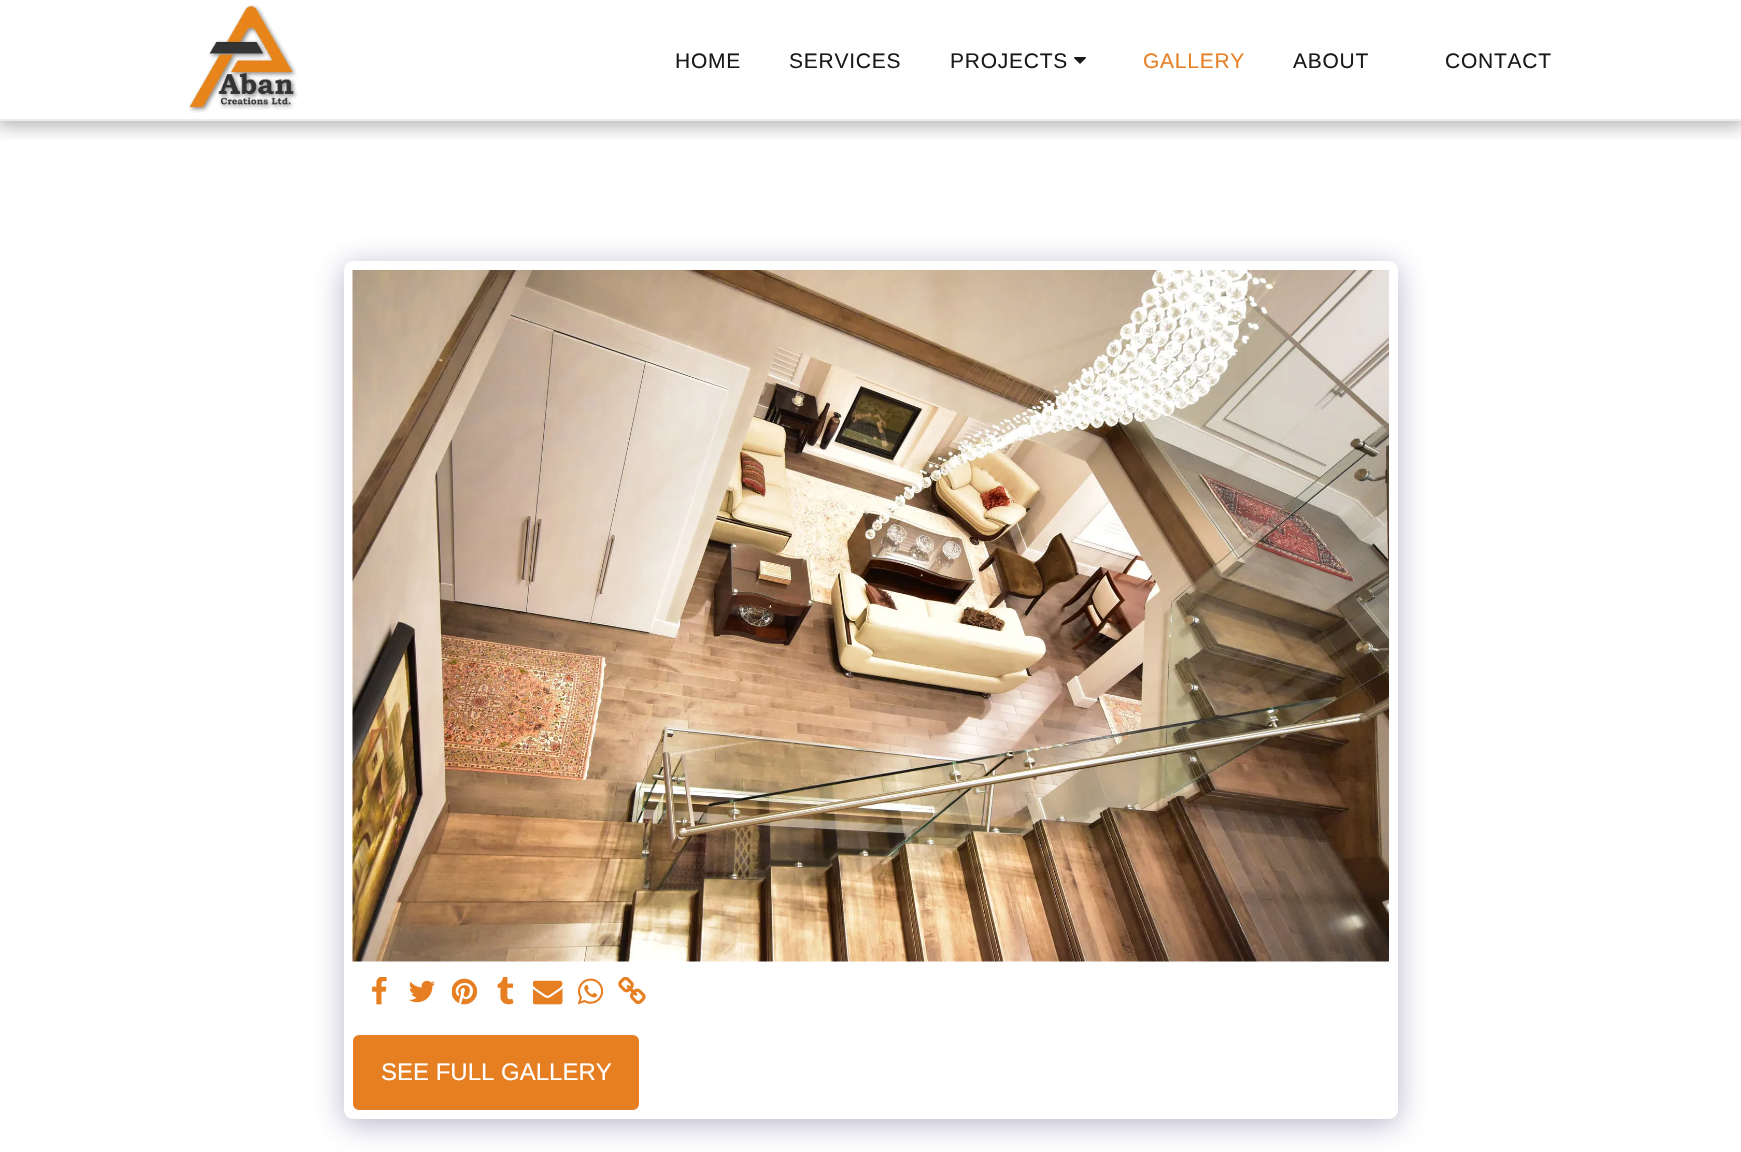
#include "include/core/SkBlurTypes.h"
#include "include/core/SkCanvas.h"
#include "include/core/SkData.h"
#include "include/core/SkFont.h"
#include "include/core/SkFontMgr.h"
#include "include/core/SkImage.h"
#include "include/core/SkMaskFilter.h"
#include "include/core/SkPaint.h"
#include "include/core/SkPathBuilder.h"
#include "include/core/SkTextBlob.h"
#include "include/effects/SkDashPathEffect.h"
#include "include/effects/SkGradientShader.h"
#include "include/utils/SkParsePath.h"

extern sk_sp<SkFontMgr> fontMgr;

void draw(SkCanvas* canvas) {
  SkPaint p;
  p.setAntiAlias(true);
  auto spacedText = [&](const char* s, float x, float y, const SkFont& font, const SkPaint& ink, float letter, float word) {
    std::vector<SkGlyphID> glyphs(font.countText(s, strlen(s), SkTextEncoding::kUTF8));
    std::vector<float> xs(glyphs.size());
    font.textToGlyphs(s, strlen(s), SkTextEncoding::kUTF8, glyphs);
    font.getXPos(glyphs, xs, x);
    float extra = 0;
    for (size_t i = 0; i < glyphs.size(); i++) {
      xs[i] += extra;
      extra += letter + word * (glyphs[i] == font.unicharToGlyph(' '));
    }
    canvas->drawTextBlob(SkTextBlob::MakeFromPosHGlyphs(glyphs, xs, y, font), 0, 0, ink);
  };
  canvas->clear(SK_ColorWHITE);
  canvas->save();
  canvas->clipRect(SkRect::MakeLTRB(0, 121, 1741, 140));
  p.setColor(SkColorSetARGB(89, 26, 26, 26));
  p.setMaskFilter(SkMaskFilter::MakeBlur(kNormal_SkBlurStyle, 9));
  canvas->drawRect(SkRect::MakeLTRB(-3, 0, 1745, 126), p);
  p.setMaskFilter(nullptr);
  canvas->restore();
  p.setColor(SkColorSetRGB(237, 237, 237));
  canvas->drawRect(SkRect::MakeLTRB(0, 119, 1741, 121), p);
  canvas->drawImageRect(SkImages::DeferredFromEncodedData(SkData::MakeFromFileName("images/1.png")), SkRect::MakeLTRB(189, 4, 298, 113), SkSamplingOptions());
  canvas->drawImageRect(SkImages::DeferredFromEncodedData(SkData::MakeFromFileName("images/2.png")), SkRect::MakeLTRB(1074, 57, 1086, 64), SkSamplingOptions());
  p.setColor(SkColorSetARGB(102, 77, 63, 122));
  p.setMaskFilter(SkMaskFilter::MakeBlur(kNormal_SkBlurStyle, 15));
  canvas->drawRoundRect(SkRect::MakeLTRB(344, 266, 1398, 1124), 9, 9, p);
  p.setMaskFilter(nullptr);
  p.setColor(SK_ColorWHITE);
  canvas->drawRoundRect(SkRect::MakeLTRB(344, 261, 1398, 1119), 9, 9, p);
  canvas->drawImageRect(SkImages::DeferredFromEncodedData(SkData::MakeFromFileName("images/3.png")), SkRect::MakeLTRB(352, 270, 1389, 962), SkSamplingOptions());
  canvas->drawImageRect(SkImages::DeferredFromEncodedData(SkData::MakeFromFileName("images/4.png")), SkRect::MakeLTRB(372, 977, 387, 1005), SkSamplingOptions());
  canvas->drawImageRect(SkImages::DeferredFromEncodedData(SkData::MakeFromFileName("images/5.png")), SkRect::MakeLTRB(409, 980, 435, 1003), SkSamplingOptions());
  canvas->drawImageRect(SkImages::DeferredFromEncodedData(SkData::MakeFromFileName("images/6.png")), SkRect::MakeLTRB(452, 978, 477, 1005), SkSamplingOptions());
  canvas->drawImageRect(SkImages::DeferredFromEncodedData(SkData::MakeFromFileName("images/7.png")), SkRect::MakeLTRB(497, 977, 514, 1005), SkSamplingOptions());
  canvas->drawImageRect(SkImages::DeferredFromEncodedData(SkData::MakeFromFileName("images/8.png")), SkRect::MakeLTRB(533, 980, 563, 1005), SkSamplingOptions());
  canvas->drawImageRect(SkImages::DeferredFromEncodedData(SkData::MakeFromFileName("images/9.png")), SkRect::MakeLTRB(578, 978, 603, 1005), SkSamplingOptions());
  canvas->drawImageRect(SkImages::DeferredFromEncodedData(SkData::MakeFromFileName("images/10.png")), SkRect::MakeLTRB(618, 977, 646, 1005), SkSamplingOptions());
  p.setColor(SkColorSetRGB(230, 126, 34));
  canvas->drawRoundRect(SkRect::MakeLTRB(354, 1036, 638, 1109), 5, 5, p);
  p.setStyle(SkPaint::kStroke_Style);
  p.setStrokeWidth(2);
  canvas->drawRoundRect(SkRect::MakeLTRB(354, 1036, 638, 1109), 5, 5, p);
  SkFont font1(fontMgr->matchFamilyStyle("Liberation Sans", SkFontStyle::Normal()), 21);
  font1.setSubpixel(true);
  p.setStyle(SkPaint::kFill_Style);
  p.setColor(SkColorSetRGB(26, 26, 26));
  spacedText("HOME", 675, 68, font1, p, 0.75f, 0);
  spacedText("SERVICES", 789, 68, font1, p, 0.75f, 0);
  spacedText("PROJECTS", 950, 68, font1, p, 0.75f, 0);
  p.setColor(SkColorSetRGB(230, 129, 39));
  spacedText("GALLERY", 1143, 68, font1, p, 0.75f, 0);
  p.setColor(SkColorSetRGB(26, 26, 26));
  spacedText("ABOUT", 1293, 68, font1, p, 0.75f, 0);
  spacedText("CONTACT", 1445, 68, font1, p, 0.75f, 0);
  SkFont font2(fontMgr->matchFamilyStyle("Liberation Sans", SkFontStyle::Normal()), 24);
  font2.setSubpixel(true);
  p.setColor(SK_ColorWHITE);
  canvas->drawString("SEE FULL GALLERY", 381, 1080, font2, p);
}
